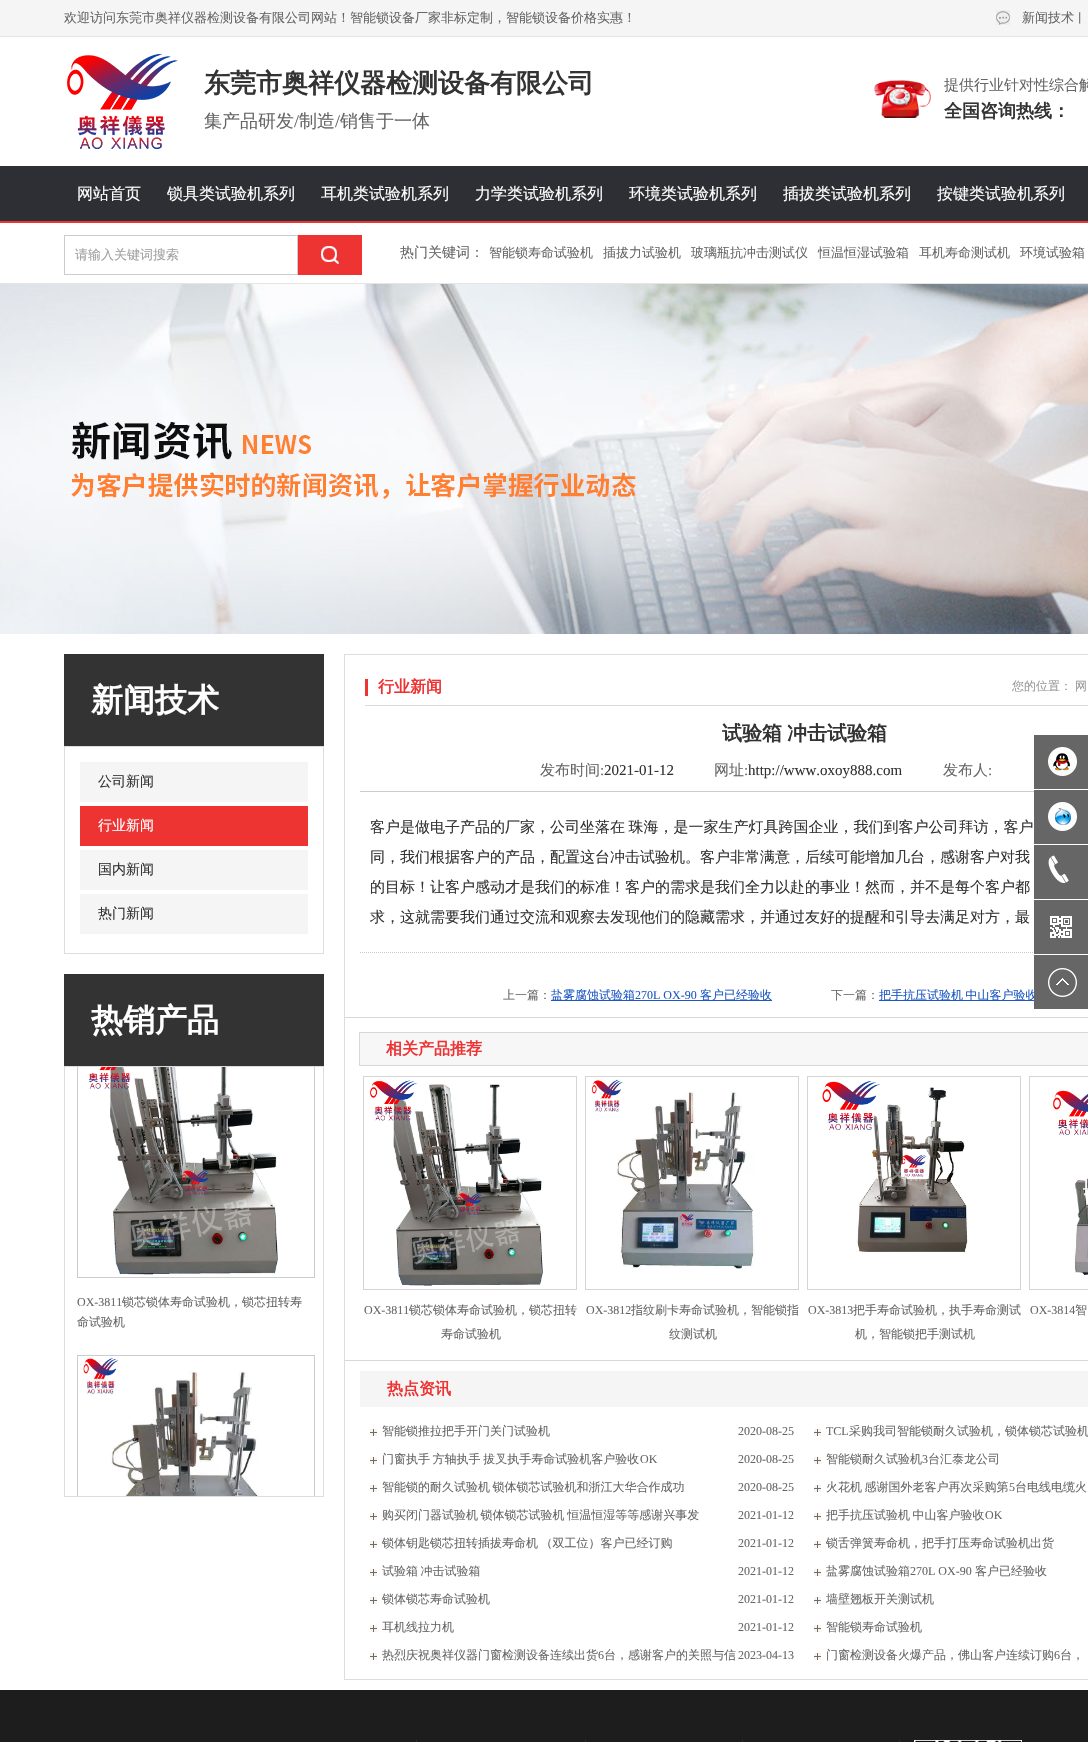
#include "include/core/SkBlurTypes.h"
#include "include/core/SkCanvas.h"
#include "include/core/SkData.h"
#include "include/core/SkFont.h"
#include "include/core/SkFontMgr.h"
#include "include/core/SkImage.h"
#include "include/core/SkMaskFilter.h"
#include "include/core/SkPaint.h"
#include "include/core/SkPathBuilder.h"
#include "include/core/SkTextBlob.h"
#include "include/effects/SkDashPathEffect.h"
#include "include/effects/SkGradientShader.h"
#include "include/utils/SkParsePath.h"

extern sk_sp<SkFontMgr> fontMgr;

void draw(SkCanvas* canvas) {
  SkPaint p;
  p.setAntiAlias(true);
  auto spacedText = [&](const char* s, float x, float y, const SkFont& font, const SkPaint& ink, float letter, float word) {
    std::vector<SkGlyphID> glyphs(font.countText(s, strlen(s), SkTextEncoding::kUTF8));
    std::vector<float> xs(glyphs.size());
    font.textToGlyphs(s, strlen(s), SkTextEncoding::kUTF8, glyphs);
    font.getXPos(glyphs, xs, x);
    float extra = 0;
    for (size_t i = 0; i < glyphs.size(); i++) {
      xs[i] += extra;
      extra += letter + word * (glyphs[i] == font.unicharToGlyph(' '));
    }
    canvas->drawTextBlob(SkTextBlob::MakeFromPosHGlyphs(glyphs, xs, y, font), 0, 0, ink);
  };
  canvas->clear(SK_ColorWHITE);
  p.setColor(SkColorSetRGB(245, 245, 245));
  canvas->drawRect(SkRect::MakeLTRB(0, 0, 1088, 36), p);
  p.setColor(SkColorSetRGB(229, 229, 229));
  canvas->drawRect(SkRect::MakeLTRB(0, 36, 1088, 37), p);
  canvas->drawImageRect(SkImages::DeferredFromEncodedData(SkData::MakeFromFileName("images/1.png")), SkRect::MakeLTRB(996, 10, 1010, 25), SkSamplingOptions());
  canvas->drawImageRect(SkImages::DeferredFromEncodedData(SkData::MakeFromFileName("images/2.png")), SkRect::MakeLTRB(67, 54, 178, 149), SkSamplingOptions());
  canvas->drawImageRect(SkImages::DeferredFromEncodedData(SkData::MakeFromFileName("images/3.png")), SkRect::MakeLTRB(874, 80, 931, 118), SkSamplingOptions());
  p.setColor(SkColorSetRGB(46, 47, 53));
  canvas->drawRect(SkRect::MakeLTRB(0, 166, 1088, 221), p);
  p.setColor(SkColorSetRGB(238, 51, 51));
  canvas->drawRect(SkRect::MakeLTRB(0, 221, 1088, 223), p);
  p.setColor(SkColorSetRGB(229, 229, 229));
  canvas->drawRect(SkRect::MakeLTRB(0, 283, 1088, 284), p);
  p.setStyle(SkPaint::kStroke_Style);
  p.setStrokeWidth(1);
  p.setColor(SkColorSetRGB(204, 204, 204));
  canvas->drawRect(SkRect::MakeLTRB(64.5f, 235.5f, 297.5f, 274.5f), p);
  p.setStyle(SkPaint::kFill_Style);
  p.setColor(SkColorSetRGB(238, 51, 51));
  canvas->drawRect(SkRect::MakeLTRB(298, 235, 362, 275), p);
  canvas->drawImageRect(SkImages::DeferredFromEncodedData(SkData::MakeFromFileName("images/4.png")), SkRect::MakeLTRB(321, 246, 339, 264), SkSamplingOptions());
  canvas->drawImageRect(SkImages::DeferredFromEncodedData(SkData::MakeFromFileName("images/5.png")), SkRect::MakeLTRB(0, 284, 1088, 634), SkSamplingOptions());
  p.setColor(SkColorSetRGB(51, 51, 51));
  canvas->drawRect(SkRect::MakeLTRB(64, 654, 324, 746), p);
  p.setStyle(SkPaint::kStroke_Style);
  p.setColor(SkColorSetRGB(221, 221, 221));
  canvas->drawRect(SkRect::MakeLTRB(64.5f, 746.5f, 323.5f, 953.5f), p);
  p.setStyle(SkPaint::kFill_Style);
  p.setColor(SkColorSetRGB(245, 245, 245));
  canvas->drawRect(SkRect::MakeLTRB(80, 762, 308, 802), p);
  p.setColor(SkColorSetRGB(238, 51, 51));
  canvas->drawRect(SkRect::MakeLTRB(80, 806, 308, 846), p);
  p.setColor(SkColorSetRGB(245, 245, 245));
  canvas->drawRect(SkRect::MakeLTRB(80, 850, 308, 890), p);
  canvas->drawRect(SkRect::MakeLTRB(80, 894, 308, 934), p);
  p.setColor(SkColorSetRGB(51, 51, 51));
  canvas->drawRect(SkRect::MakeLTRB(64, 974, 324, 1066), p);
  p.setStyle(SkPaint::kStroke_Style);
  p.setColor(SkColorSetRGB(221, 221, 221));
  canvas->drawRect(SkRect::MakeLTRB(64.5f, 1066.5f, 323.5f, 1496.5f), p);
  canvas->save();
  canvas->clipRect(SkRect::MakeLTRB(65, 1067, 323, 1496));
  p.setColor(SkColorSetRGB(204, 204, 204));
  canvas->drawRect(SkRect::MakeLTRB(77.5f, 1040.5f, 314.5f, 1277.5f), p);
  canvas->restore();
  canvas->drawImageRect(SkImages::DeferredFromEncodedData(SkData::MakeFromFileName("images/6.png")), SkRect::MakeLTRB(88, 1067, 278, 1275), SkSamplingOptions());
  canvas->save();
  canvas->clipRect(SkRect::MakeLTRB(65, 1067, 323, 1496));
  canvas->drawRect(SkRect::MakeLTRB(77.5f, 1355.5f, 314.5f, 1592.5f), p);
  canvas->restore();
  canvas->drawImageRect(SkImages::DeferredFromEncodedData(SkData::MakeFromFileName("images/7.png")), SkRect::MakeLTRB(83, 1357, 259, 1496), SkSamplingOptions());
  p.setColor(SkColorSetRGB(221, 221, 221));
  canvas->drawRect(SkRect::MakeLTRB(344.5f, 654.5f, 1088.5f, 1679.5f), p);
  p.setStyle(SkPaint::kFill_Style);
  p.setColor(SkColorSetRGB(219, 219, 219));
  canvas->drawRect(SkRect::MakeLTRB(365, 705, 1088, 706), p);
  p.setColor(SkColorSetRGB(238, 51, 51));
  canvas->drawRect(SkRect::MakeLTRB(365, 679, 368, 696), p);
  p.setColor(SkColorSetRGB(204, 204, 204));
  canvas->drawRect(SkRect::MakeLTRB(360, 791, 1034, 792), p);
  p.setStyle(SkPaint::kStroke_Style);
  p.setPathEffect(SkDashPathEffect::Make({{1, 1}}, 0));
  canvas->drawPath(SkPathBuilder().moveTo(360, 952.5f).lineTo(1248, 952.5f).detach(), p);
  p.setPathEffect(nullptr);
  p.setStyle(SkPaint::kFill_Style);
  p.setColor(SkColorSetRGB(28, 87, 196));
  canvas->drawRect(SkRect::MakeLTRB(551, 1000, 772, 1001), p);
  canvas->drawRect(SkRect::MakeLTRB(879, 1000, 1034, 1001), p);
  p.setColor(SkColorSetRGB(215, 215, 215));
  canvas->drawRect(SkRect::MakeLTRB(345, 1017, 1088, 1018), p);
  canvas->drawRect(SkRect::MakeLTRB(345, 1360, 1088, 1361), p);
  p.setColor(SkColorSetRGB(247, 247, 247));
  canvas->drawRect(SkRect::MakeLTRB(359.5f, 1032.5f, 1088.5f, 1065.5f), p);
  p.setStyle(SkPaint::kStroke_Style);
  p.setColor(SkColorSetRGB(215, 215, 215));
  canvas->drawRect(SkRect::MakeLTRB(359.5f, 1032.5f, 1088.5f, 1065.5f), p);
  p.setColor(SkColorSetRGB(213, 213, 213));
  canvas->drawRect(SkRect::MakeLTRB(363.5f, 1076.5f, 576.5f, 1289.5f), p);
  canvas->drawImageRect(SkImages::DeferredFromEncodedData(SkData::MakeFromFileName("images/8.png")), SkRect::MakeLTRB(370, 1080, 543, 1286), SkSamplingOptions());
  canvas->drawRect(SkRect::MakeLTRB(585.5f, 1076.5f, 798.5f, 1289.5f), p);
  canvas->drawImageRect(SkImages::DeferredFromEncodedData(SkData::MakeFromFileName("images/9.png")), SkRect::MakeLTRB(591, 1079, 755, 1270), SkSamplingOptions());
  canvas->drawRect(SkRect::MakeLTRB(807.5f, 1076.5f, 1020.5f, 1289.5f), p);
  canvas->drawImageRect(SkImages::DeferredFromEncodedData(SkData::MakeFromFileName("images/10.png")), SkRect::MakeLTRB(822, 1081, 968, 1252), SkSamplingOptions());
  canvas->drawRect(SkRect::MakeLTRB(1029.5f, 1076.5f, 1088.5f, 1289.5f), p);
  canvas->drawImageRect(SkImages::DeferredFromEncodedData(SkData::MakeFromFileName("images/11.png")), SkRect::MakeLTRB(1053, 1090, 1088, 1275), SkSamplingOptions());
  p.setStyle(SkPaint::kFill_Style);
  p.setColor(SkColorSetRGB(245, 245, 245));
  canvas->drawRect(SkRect::MakeLTRB(360, 1371, 1088, 1407), p);
  canvas->drawImageRect(SkImages::DeferredFromEncodedData(SkData::MakeFromFileName("images/12.png")), SkRect::MakeLTRB(370, 1429, 377, 1436), SkSamplingOptions());
  canvas->drawImageRect(SkImages::DeferredFromEncodedData(SkData::MakeFromFileName("images/12.png")), SkRect::MakeLTRB(814, 1429, 821, 1436), SkSamplingOptions());
  canvas->drawImageRect(SkImages::DeferredFromEncodedData(SkData::MakeFromFileName("images/12.png")), SkRect::MakeLTRB(370, 1457, 377, 1464), SkSamplingOptions());
  canvas->drawImageRect(SkImages::DeferredFromEncodedData(SkData::MakeFromFileName("images/12.png")), SkRect::MakeLTRB(814, 1457, 821, 1464), SkSamplingOptions());
  canvas->drawImageRect(SkImages::DeferredFromEncodedData(SkData::MakeFromFileName("images/12.png")), SkRect::MakeLTRB(370, 1485, 377, 1492), SkSamplingOptions());
  canvas->drawImageRect(SkImages::DeferredFromEncodedData(SkData::MakeFromFileName("images/12.png")), SkRect::MakeLTRB(814, 1485, 821, 1492), SkSamplingOptions());
  canvas->drawImageRect(SkImages::DeferredFromEncodedData(SkData::MakeFromFileName("images/12.png")), SkRect::MakeLTRB(370, 1513, 377, 1520), SkSamplingOptions());
  canvas->drawImageRect(SkImages::DeferredFromEncodedData(SkData::MakeFromFileName("images/12.png")), SkRect::MakeLTRB(814, 1513, 821, 1520), SkSamplingOptions());
  canvas->drawImageRect(SkImages::DeferredFromEncodedData(SkData::MakeFromFileName("images/12.png")), SkRect::MakeLTRB(370, 1541, 377, 1548), SkSamplingOptions());
  canvas->drawImageRect(SkImages::DeferredFromEncodedData(SkData::MakeFromFileName("images/12.png")), SkRect::MakeLTRB(814, 1541, 821, 1548), SkSamplingOptions());
  canvas->drawImageRect(SkImages::DeferredFromEncodedData(SkData::MakeFromFileName("images/12.png")), SkRect::MakeLTRB(370, 1569, 377, 1576), SkSamplingOptions());
  canvas->drawImageRect(SkImages::DeferredFromEncodedData(SkData::MakeFromFileName("images/12.png")), SkRect::MakeLTRB(814, 1569, 821, 1576), SkSamplingOptions());
  canvas->drawImageRect(SkImages::DeferredFromEncodedData(SkData::MakeFromFileName("images/12.png")), SkRect::MakeLTRB(370, 1597, 377, 1604), SkSamplingOptions());
  canvas->drawImageRect(SkImages::DeferredFromEncodedData(SkData::MakeFromFileName("images/12.png")), SkRect::MakeLTRB(814, 1597, 821, 1604), SkSamplingOptions());
  canvas->drawImageRect(SkImages::DeferredFromEncodedData(SkData::MakeFromFileName("images/12.png")), SkRect::MakeLTRB(370, 1625, 377, 1632), SkSamplingOptions());
  canvas->drawImageRect(SkImages::DeferredFromEncodedData(SkData::MakeFromFileName("images/12.png")), SkRect::MakeLTRB(814, 1625, 821, 1632), SkSamplingOptions());
  canvas->drawImageRect(SkImages::DeferredFromEncodedData(SkData::MakeFromFileName("images/12.png")), SkRect::MakeLTRB(370, 1653, 377, 1660), SkSamplingOptions());
  canvas->drawImageRect(SkImages::DeferredFromEncodedData(SkData::MakeFromFileName("images/12.png")), SkRect::MakeLTRB(814, 1653, 821, 1660), SkSamplingOptions());
  p.setColor(SkColorSetRGB(102, 102, 102));
  canvas->drawRect(SkRect::MakeLTRB(1034, 735, 1088, 789), p);
  canvas->drawImageRect(SkImages::DeferredFromEncodedData(SkData::MakeFromFileName("images/13.png")), SkRect::MakeLTRB(1048, 747, 1077, 776), SkSamplingOptions());
  canvas->drawRect(SkRect::MakeLTRB(1034, 790, 1088, 844), p);
  canvas->drawImageRect(SkImages::DeferredFromEncodedData(SkData::MakeFromFileName("images/14.png")), SkRect::MakeLTRB(1048, 802, 1077, 831), SkSamplingOptions());
  canvas->drawRect(SkRect::MakeLTRB(1034, 845, 1088, 899), p);
  canvas->drawImageRect(SkImages::DeferredFromEncodedData(SkData::MakeFromFileName("images/15.png")), SkRect::MakeLTRB(1048, 855, 1069, 883), SkSamplingOptions());
  canvas->drawRect(SkRect::MakeLTRB(1034, 900, 1088, 954), p);
  canvas->drawImageRect(SkImages::DeferredFromEncodedData(SkData::MakeFromFileName("images/16.png")), SkRect::MakeLTRB(1050, 916, 1072, 938), SkSamplingOptions());
  p.setColor(SkColorSetRGB(29, 29, 29));
  canvas->drawRect(SkRect::MakeLTRB(0, 1690, 1088, 1742), p);
  p.setColor(SkColorSetRGB(51, 51, 51));
  canvas->drawRect(SkRect::MakeLTRB(416, 1740, 417, 1742), p);
  canvas->drawRect(SkRect::MakeLTRB(585, 1740, 586, 1742), p);
  canvas->drawRect(SkRect::MakeLTRB(742, 1740, 743, 1742), p);
  canvas->drawRect(SkRect::MakeLTRB(899, 1740, 900, 1742), p);
  canvas->drawImageRect(SkImages::DeferredFromEncodedData(SkData::MakeFromFileName("images/18.png")), SkRect::MakeLTRB(914, 1740, 1022, 1742), SkSamplingOptions());
  SkFont font1(fontMgr->matchFamilyStyle("WenQuanYi Zen Hei", SkFontStyle(500, SkFontStyle::kNormal_Width, SkFontStyle::kUpright_Slant)), 13);
  font1.setSubpixel(true);
  p.setColor(SkColorSetRGB(102, 102, 102));
  canvas->drawString("欢迎访问东莞市奥祥仪器检测设备有限公司网站！智能锁设备厂家非标定制，智能锁设备价格实惠！", 64, 22, font1, p);
  canvas->drawString("新闻技术", 1022, 22, font1, p);
  SkFont font2(fontMgr->matchFamilyStyle("WenQuanYi Zen Hei", SkFontStyle(500, SkFontStyle::kNormal_Width, SkFontStyle::kUpright_Slant)), 12);
  font2.setSubpixel(true);
  canvas->drawString("丨", 1074, 22, font2, p);
  SkFont font3(fontMgr->matchFamilyStyle("WenQuanYi Zen Hei", SkFontStyle::Bold()), 26);
  font3.setSubpixel(true);
  p.setColor(SkColorSetRGB(51, 51, 51));
  canvas->drawString("东莞市奥祥仪器检测设备有限公司", 204, 92, font3, p);
  SkFont font4(fontMgr->matchFamilyStyle("WenQuanYi Zen Hei", SkFontStyle(500, SkFontStyle::kNormal_Width, SkFontStyle::kUpright_Slant)), 18);
  font4.setSubpixel(true);
  p.setColor(SkColorSetRGB(102, 102, 102));
  canvas->drawString("集产品研发", 204, 127, font4, p);
  SkFont font5(fontMgr->matchFamilyStyle("Liberation Serif", SkFontStyle::Normal()), 18);
  font5.setSubpixel(true);
  canvas->drawString("/", 294, 127, font5, p);
  canvas->drawString("制造", 299, 127, font4, p);
  canvas->drawString("/", 335, 127, font5, p);
  canvas->drawString("销售于一体", 340, 127, font4, p);
  SkFont font6(fontMgr->matchFamilyStyle("WenQuanYi Zen Hei", SkFontStyle(500, SkFontStyle::kNormal_Width, SkFontStyle::kUpright_Slant)), 15);
  font6.setSubpixel(true);
  canvas->drawString("提供行业针对性综合解", 944, 90, font6, p);
  SkFont font7(fontMgr->matchFamilyStyle("WenQuanYi Zen Hei", SkFontStyle::Bold()), 18);
  font7.setSubpixel(true);
  p.setColor(SkColorSetRGB(51, 51, 51));
  canvas->drawString("全国咨询热线：", 944, 117, font7, p);
  SkFont font8(fontMgr->matchFamilyStyle("WenQuanYi Zen Hei", SkFontStyle(500, SkFontStyle::kNormal_Width, SkFontStyle::kUpright_Slant)), 16);
  font8.setSubpixel(true);
  p.setColor(SK_ColorWHITE);
  canvas->drawString("网站首页", 77, 199, font8, p);
  canvas->drawString("锁具类试验机系列", 167, 199, font8, p);
  canvas->drawString("耳机类试验机系列", 321, 199, font8, p);
  canvas->drawString("力学类试验机系列", 475, 199, font8, p);
  canvas->drawString("环境类试验机系列", 629, 199, font8, p);
  canvas->drawString("插拔类试验机系列", 783, 199, font8, p);
  canvas->drawString("按键类试验机系列", 937, 199, font8, p);
  p.setColor(SkColorSetRGB(161, 160, 160));
  canvas->drawString("请输入关键词搜索", 75, 259, font1, p);
  SkFont font9(fontMgr->matchFamilyStyle("WenQuanYi Zen Hei", SkFontStyle(500, SkFontStyle::kNormal_Width, SkFontStyle::kUpright_Slant)), 14);
  font9.setSubpixel(true);
  p.setColor(SkColorSetRGB(102, 102, 102));
  canvas->drawString("热门关键词：", 400, 257, font9, p);
  canvas->drawString("智能锁寿命试验机", 489, 257, font1, p);
  canvas->drawString("插拔力试验机", 603, 257, font1, p);
  canvas->drawString("玻璃瓶抗冲击测试仪", 691, 257, font1, p);
  canvas->drawString("恒温恒湿试验箱", 818, 257, font1, p);
  canvas->drawString("耳机寿命测试机", 919, 257, font1, p);
  canvas->drawString("环境试验箱", 1020, 257, font1, p);
  SkFont font10(fontMgr->matchFamilyStyle("WenQuanYi Zen Hei", SkFontStyle::Bold()), 32);
  font10.setSubpixel(true);
  p.setColor(SK_ColorWHITE);
  canvas->drawString("新闻技术", 91, 711, font10, p);
  p.setColor(SkColorSetRGB(51, 51, 51));
  canvas->drawString("公司新闻", 98, 786, font9, p);
  p.setColor(SK_ColorWHITE);
  canvas->drawString("行业新闻", 98, 830, font9, p);
  p.setColor(SkColorSetRGB(51, 51, 51));
  canvas->drawString("国内新闻", 98, 874, font9, p);
  canvas->drawString("热门新闻", 98, 918, font9, p);
  p.setColor(SK_ColorWHITE);
  canvas->drawString("热销产品", 91, 1031, font10, p);
  SkFont font11(fontMgr->matchFamilyStyle("Liberation Serif", SkFontStyle::Normal()), 12);
  font11.setSubpixel(true);
  p.setColor(SkColorSetRGB(102, 102, 102));
  canvas->drawString("OX-3811", 77, 1306, font11, p);
  canvas->drawString("锁芯锁体寿命试验机，锁芯扭转寿", 122, 1306, font2, p);
  canvas->drawString("命试验机", 77, 1326, font2, p);
  SkFont font12(fontMgr->matchFamilyStyle("WenQuanYi Zen Hei", SkFontStyle::Bold()), 16);
  font12.setSubpixel(true);
  p.setColor(SkColorSetRGB(238, 51, 51));
  canvas->drawString("行业新闻", 378, 692, font12, p);
  p.setColor(SkColorSetRGB(153, 153, 153));
  canvas->drawString("您的位置：", 1012, 690, font2, p);
  canvas->drawString("网", 1075, 690, font2, p);
  SkFont font13(fontMgr->matchFamilyStyle("WenQuanYi Zen Hei", SkFontStyle::Bold()), 20);
  font13.setSubpixel(true);
  p.setColor(SkColorSetRGB(51, 51, 51));
  spacedText("试验箱 冲击试验箱", 722, 740, font13, p, 0, -1);
  p.setColor(SkColorSetRGB(102, 102, 102));
  canvas->drawString("发布时间", 540, 775, font6, p);
  SkFont font14(fontMgr->matchFamilyStyle("Liberation Serif", SkFontStyle::Normal()), 15);
  font14.setSubpixel(true);
  canvas->drawString(":", 600, 775, font14, p);
  p.setColor(SkColorSetRGB(51, 51, 51));
  canvas->drawString("2021-01-12", 604, 775, font14, p);
  p.setColor(SkColorSetRGB(102, 102, 102));
  canvas->drawString("网址", 714, 775, font6, p);
  canvas->drawString(":", 744, 775, font14, p);
  p.setColor(SkColorSetRGB(51, 51, 51));
  canvas->drawString("http://www.oxoy888.com", 748, 775, font14, p);
  p.setColor(SkColorSetRGB(102, 102, 102));
  canvas->drawString("发布人", 943, 775, font6, p);
  canvas->drawString(":", 988, 775, font14, p);
  p.setColor(SkColorSetRGB(51, 51, 51));
  spacedText("客户是做电子产品的厂家，公司坐落在 珠海，是一家生产灯具跨国企业，我们到客户公司拜访，客户", 370, 832, font6, p, 0, -1);
  canvas->drawString("同，我们根据客户的产品，配置这台冲击试验机。客户非常满意，后续可能增加几台，感谢客户对我", 370, 862, font6, p);
  canvas->drawString("的目标！让客户感动才是我们的标准！客户的需求是我们全力以赴的事业！然而，并不是每个客户都", 370, 892, font6, p);
  canvas->drawString("求，这就需要我们通过交流和观察去发现他们的隐藏需求，并通过友好的提醒和引导去满足对方，最", 370, 922, font6, p);
  p.setColor(SkColorSetRGB(102, 102, 102));
  canvas->drawString("上一篇：", 503, 999, font2, p);
  p.setColor(SkColorSetRGB(28, 87, 196));
  canvas->drawString("盐雾腐蚀试验箱", 551, 999, font2, p);
  canvas->drawString("270L OX-90", 635, 999, font11, p);
  canvas->drawString("客户已经验收", 700, 999, font2, p);
  p.setColor(SkColorSetRGB(102, 102, 102));
  canvas->drawString("下一篇：", 831, 999, font2, p);
  p.setColor(SkColorSetRGB(28, 87, 196));
  spacedText("把手抗压试验机 中山客户验收", 879, 999, font2, p, 0, -1);
  p.setColor(SkColorSetRGB(238, 51, 51));
  canvas->drawString("相关产品推荐", 386, 1054, font12, p);
  p.setColor(SkColorSetRGB(102, 102, 102));
  canvas->drawString("OX-3811", 364, 1314, font11, p);
  canvas->drawString("锁芯锁体寿命试验机，锁芯扭转", 409, 1314, font2, p);
  canvas->drawString("寿命试验机", 441, 1338, font2, p);
  canvas->drawString("OX-3812", 586, 1314, font11, p);
  canvas->drawString("指纹刷卡寿命试验机，智能锁指", 631, 1314, font2, p);
  canvas->drawString("纹测试机", 669, 1338, font2, p);
  canvas->drawString("OX-3813", 808, 1314, font11, p);
  canvas->drawString("把手寿命试验机，执手寿命测试", 853, 1314, font2, p);
  canvas->drawString("机，智能锁把手测试机", 855, 1338, font2, p);
  canvas->drawString("OX-3814", 1030, 1314, font11, p);
  canvas->drawString("智", 1075, 1314, font2, p);
  p.setColor(SkColorSetRGB(238, 51, 51));
  canvas->drawString("热点资讯", 387, 1394, font12, p);
  p.setColor(SkColorSetRGB(102, 102, 102));
  canvas->drawString("智能锁推拉把手开门关门试验机", 382, 1435, font2, p);
  canvas->drawString("2020-08-25", 738, 1435, font11, p);
  canvas->drawString("TCL", 826, 1435, font11, p);
  canvas->drawString("采购我司智能锁耐久试验机，锁体锁芯试验机", 849, 1435, font2, p);
  spacedText("门窗执手 方轴执手 拔叉执手寿命试验机客户验收", 382, 1463, font2, p, 0, -1);
  canvas->drawString("OK", 640, 1463, font11, p);
  canvas->drawString("2020-08-25", 738, 1463, font11, p);
  canvas->drawString("智能锁耐久试验机", 826, 1463, font2, p);
  canvas->drawString("3", 922, 1463, font11, p);
  canvas->drawString("台汇泰龙公司", 928, 1463, font2, p);
  spacedText("智能锁的耐久试验机 锁体锁芯试验机和浙江大华合作成功", 382, 1491, font2, p, 0, -1);
  canvas->drawString("2020-08-25", 738, 1491, font11, p);
  spacedText("火花机 感谢国外老客户再次采购第", 826, 1491, font2, p, 0, -1);
  canvas->drawString("5", 1009, 1491, font11, p);
  canvas->drawString("台电线电缆火", 1015, 1491, font2, p);
  spacedText("购买闭门器试验机 锁体锁芯试验机 恒温恒湿等等感谢兴事发", 382, 1519, font2, p, 0, -1);
  canvas->drawString("2021-01-12", 738, 1519, font11, p);
  spacedText("把手抗压试验机 中山客户验收", 826, 1519, font2, p, 0, -1);
  canvas->drawString("OK", 985, 1519, font11, p);
  spacedText("锁体钥匙锁芯扭转插拔寿命机 （双工位）客户已经订购", 382, 1547, font2, p, 0, -1);
  canvas->drawString("2021-01-12", 738, 1547, font11, p);
  canvas->drawString("锁舌弹簧寿命机，把手打压寿命试验机出货", 826, 1547, font2, p);
  spacedText("试验箱 冲击试验箱", 382, 1575, font2, p, 0, -1);
  canvas->drawString("2021-01-12", 738, 1575, font11, p);
  canvas->drawString("盐雾腐蚀试验箱", 826, 1575, font2, p);
  canvas->drawString("270L OX-90", 910, 1575, font11, p);
  canvas->drawString("客户已经验收", 975, 1575, font2, p);
  canvas->drawString("锁体锁芯寿命试验机", 382, 1603, font2, p);
  canvas->drawString("2021-01-12", 738, 1603, font11, p);
  canvas->drawString("墙壁翘板开关测试机", 826, 1603, font2, p);
  canvas->drawString("耳机线拉力机", 382, 1631, font2, p);
  canvas->drawString("2021-01-12", 738, 1631, font11, p);
  canvas->drawString("智能锁寿命试验机", 826, 1631, font2, p);
  canvas->drawString("热烈庆祝奥祥仪器门窗检测设备连续出货", 382, 1659, font2, p);
  canvas->drawString("6", 598, 1659, font11, p);
  canvas->drawString("台，感谢客户的关照与信", 604, 1659, font2, p);
  canvas->drawString("2023-04-13", 738, 1659, font11, p);
  canvas->drawString("门窗检测设备火爆产品，佛山客户连续订购", 826, 1659, font2, p);
  canvas->drawString("6", 1054, 1659, font11, p);
  canvas->drawString("台，", 1060, 1659, font2, p);
  canvas->drawRect(SkRect::MakeLTRB(1034, 955, 1088, 1009), p);
  canvas->drawImageRect(SkImages::DeferredFromEncodedData(SkData::MakeFromFileName("images/17.png")), SkRect::MakeLTRB(1048, 968, 1077, 997), SkSamplingOptions());
}
